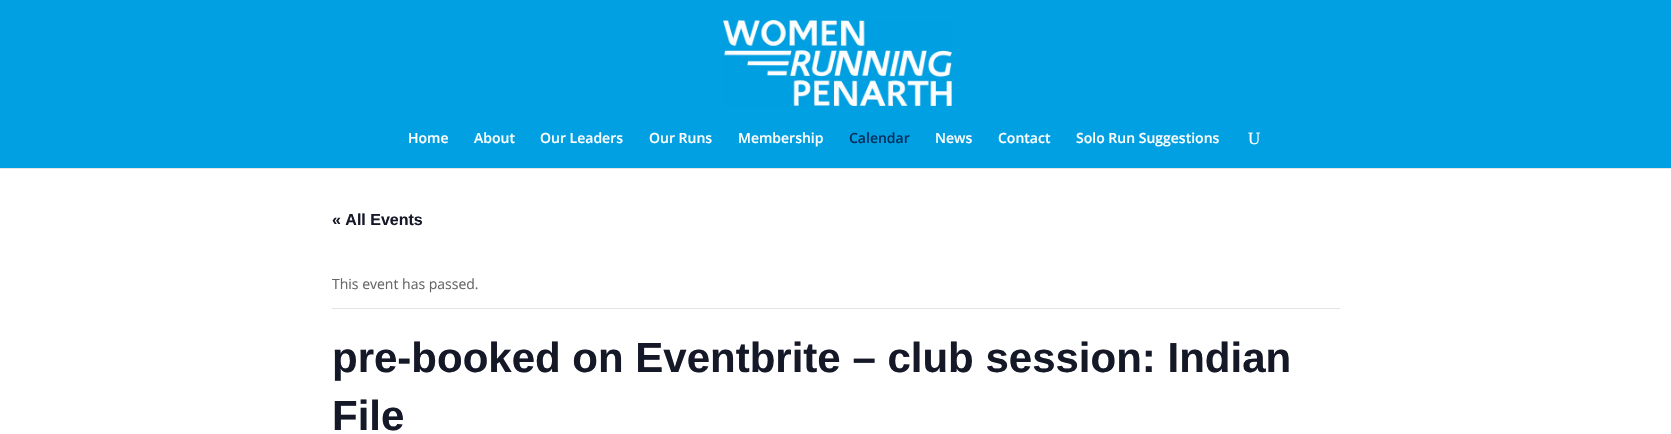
#include "include/core/SkBlurTypes.h"
#include "include/core/SkCanvas.h"
#include "include/core/SkData.h"
#include "include/core/SkFont.h"
#include "include/core/SkFontMgr.h"
#include "include/core/SkImage.h"
#include "include/core/SkMaskFilter.h"
#include "include/core/SkPaint.h"
#include "include/core/SkPathBuilder.h"
#include "include/core/SkTextBlob.h"
#include "include/effects/SkDashPathEffect.h"
#include "include/effects/SkGradientShader.h"
#include "include/utils/SkParsePath.h"

extern sk_sp<SkFontMgr> fontMgr;

void draw(SkCanvas* canvas) {
  SkPaint p;
  p.setAntiAlias(true);
  canvas->clear(SK_ColorWHITE);
  p.setColor(SkColorSetRGB(230, 230, 230));
  canvas->drawRect(SkRect::MakeLTRB(0, 168, 1671, 169), p);
  p.setColor(SkColorSetRGB(0, 160, 227));
  canvas->drawRect(SkRect::MakeLTRB(0, 0, 1671, 168), p);
  canvas->drawImageRect(SkImages::DeferredFromEncodedData(SkData::MakeFromFileName("images/1.png")), SkRect::MakeLTRB(723, 20, 952, 106), SkSamplingOptions());
  p.setColor(SkColorSetRGB(228, 228, 228));
  canvas->drawRect(SkRect::MakeLTRB(332, 308, 1340, 309), p);
  SkFont font1(fontMgr->matchFamilyStyle("Open Sans", SkFontStyle(600, SkFontStyle::kNormal_Width, SkFontStyle::kUpright_Slant)), 14);
  font1.setSubpixel(true);
  p.setColor(SK_ColorWHITE);
  canvas->drawString("Home", 408, 143, font1, p);
  canvas->drawString("About", 474, 143, font1, p);
  canvas->drawString("Our Leaders", 540, 143, font1, p);
  canvas->drawString("Our Runs", 649, 143, font1, p);
  canvas->drawString("Membership", 738, 143, font1, p);
  p.setColor(SkColorSetRGB(0, 48, 94));
  canvas->drawString("Calendar", 849, 143, font1, p);
  p.setColor(SK_ColorWHITE);
  canvas->drawString("News", 935, 143, font1, p);
  canvas->drawString("Contact", 998, 143, font1, p);
  canvas->drawString("Solo Run Suggestions", 1076, 143, font1, p);
  SkFont font2(fontMgr->matchFamilyStyle("Liberation Serif", SkFontStyle::Normal()), 17);
  font2.setSubpixel(true);
  canvas->drawString("U", 1248, 144, font2, p);
  SkFont font3(fontMgr->matchFamilyStyle("Liberation Sans", SkFontStyle::Bold()), 16);
  font3.setSubpixel(true);
  p.setColor(SkColorSetRGB(20, 24, 39));
  canvas->drawString("« All Events", 332, 225, font3, p);
  SkFont font4(fontMgr->matchFamilyStyle("Open Sans", SkFontStyle::Normal()), 14);
  font4.setSubpixel(true);
  p.setColor(SkColorSetRGB(102, 102, 102));
  canvas->drawString("This event has passed.", 332, 289, font4, p);
  SkFont font5(fontMgr->matchFamilyStyle("Liberation Sans", SkFontStyle::Bold()), 42);
  font5.setSubpixel(true);
  p.setColor(SkColorSetRGB(20, 24, 39));
  canvas->drawString("pre-booked on Eventbrite – club session: Indian", 332, 372, font5, p);
  canvas->drawString("File", 332, 430, font5, p);
}
